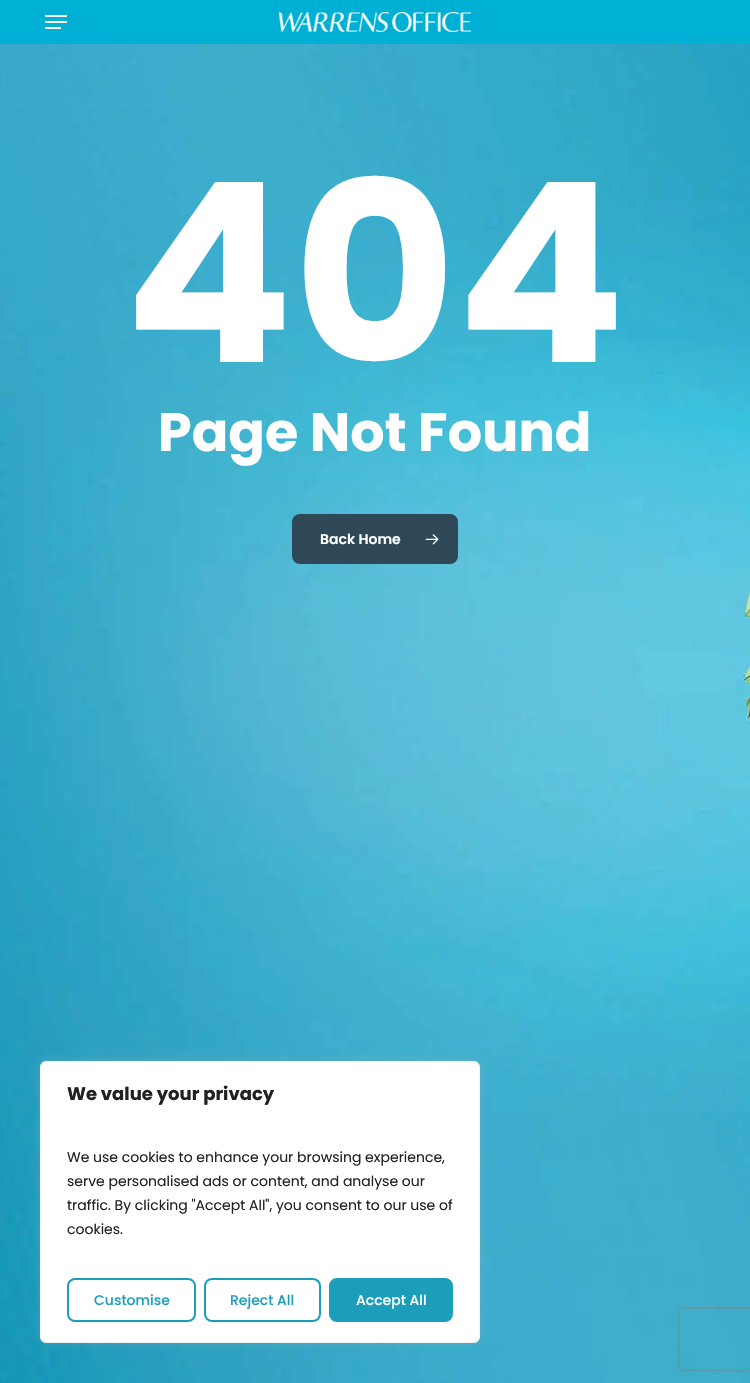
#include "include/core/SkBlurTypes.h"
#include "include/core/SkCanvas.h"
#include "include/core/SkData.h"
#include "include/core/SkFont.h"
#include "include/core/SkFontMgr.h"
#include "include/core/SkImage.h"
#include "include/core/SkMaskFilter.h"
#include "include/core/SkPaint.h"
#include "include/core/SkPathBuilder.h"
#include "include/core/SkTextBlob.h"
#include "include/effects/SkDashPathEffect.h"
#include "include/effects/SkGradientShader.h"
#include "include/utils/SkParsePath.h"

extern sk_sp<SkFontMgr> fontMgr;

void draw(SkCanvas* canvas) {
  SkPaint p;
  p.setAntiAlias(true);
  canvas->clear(SkColorSetRGB(0, 175, 212));
  p.setColor(SK_ColorWHITE);
  canvas->drawRect(SkRect::MakeLTRB(45, 15, 67, 17), p);
  canvas->drawRect(SkRect::MakeLTRB(45, 27, 61, 29), p);
  canvas->drawRect(SkRect::MakeLTRB(45, 21, 67, 23), p);
  canvas->drawImageRect(SkImages::DeferredFromEncodedData(SkData::MakeFromFileName("images/1.png")), SkRect::MakeLTRB(278, 12, 472, 32), SkSamplingOptions());
  canvas->drawImageRect(SkImages::DeferredFromEncodedData(SkData::MakeFromFileName("images/2.png")), SkRect::MakeLTRB(0, 44, 750, 1383), SkSamplingOptions());
  p.setColor(SkColorSetRGB(47, 72, 88));
  canvas->drawRoundRect(SkRect::MakeLTRB(292, 514, 458, 564), 8, 8, p);
  canvas->drawImageRect(SkImages::DeferredFromEncodedData(SkData::MakeFromFileName("images/3.png")), SkRect::MakeLTRB(425, 534, 439, 545), SkSamplingOptions());
  p.setColor(SkColorSetARGB(77, 172, 171, 171));
  p.setMaskFilter(SkMaskFilter::MakeBlur(kNormal_SkBlurStyle, 5));
  canvas->drawRoundRect(SkRect::MakeLTRB(40, 1060, 480, 1342), 6, 6, p);
  p.setMaskFilter(nullptr);
  p.setColor(SK_ColorWHITE);
  canvas->drawRoundRect(SkRect::MakeLTRB(40.5f, 1061.5f, 479.5f, 1342.5f), 5.5f, 5.5f, p);
  p.setStyle(SkPaint::kStroke_Style);
  p.setStrokeWidth(1);
  p.setColor(SkColorSetRGB(244, 244, 244));
  canvas->drawRoundRect(SkRect::MakeLTRB(40.5f, 1061.5f, 479.5f, 1342.5f), 5.5f, 5.5f, p);
  p.setStrokeWidth(2);
  p.setColor(SkColorSetRGB(28, 157, 186));
  canvas->drawRoundRect(SkRect::MakeLTRB(68, 1279, 195, 1321), 7, 7, p);
  canvas->drawRoundRect(SkRect::MakeLTRB(205, 1279, 320, 1321), 7, 7, p);
  p.setStyle(SkPaint::kFill_Style);
  canvas->drawRoundRect(SkRect::MakeLTRB(330, 1279, 452, 1321), 7, 7, p);
  p.setStyle(SkPaint::kStroke_Style);
  canvas->drawRoundRect(SkRect::MakeLTRB(330, 1279, 452, 1321), 7, 7, p);
  canvas->save();
  canvas->clipPath(SkPathBuilder(SkPathFillType::kEvenOdd).moveTo(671, 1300).lineTo(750, 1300).lineTo(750, 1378).lineTo(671, 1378).close().moveTo(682, 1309).lineTo(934, 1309).cubicTo(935, 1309, 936, 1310, 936, 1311).lineTo(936, 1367).cubicTo(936, 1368, 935, 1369, 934, 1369).lineTo(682, 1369).cubicTo(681, 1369, 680, 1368, 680, 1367).lineTo(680, 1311).cubicTo(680, 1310, 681, 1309, 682, 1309).close().detach(), true);
  p.setStyle(SkPaint::kFill_Style);
  p.setColor(SkColorSetRGB(128, 128, 128));
  p.setMaskFilter(SkMaskFilter::MakeBlur(kNormal_SkBlurStyle, 2.5f));
  canvas->drawRoundRect(SkRect::MakeLTRB(680, 1309, 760, 1369), 2, 2, p);
  p.setMaskFilter(nullptr);
  canvas->restore();
  SkFont font1(fontMgr->matchFamilyStyle("Poppins", SkFontStyle::Bold()), 250);
  font1.setSubpixel(true);
  p.setColor(SK_ColorWHITE);
  canvas->drawString("404", 124, 362, font1, p);
  SkFont font2(fontMgr->matchFamilyStyle("Poppins", SkFontStyle::Bold()), 54);
  font2.setSubpixel(true);
  canvas->drawString("Page Not Found", 158, 451, font2, p);
  SkFont font3(fontMgr->matchFamilyStyle("Poppins", SkFontStyle(600, SkFontStyle::kNormal_Width, SkFontStyle::kUpright_Slant)), 14);
  font3.setSubpixel(true);
  canvas->drawString("Back Home", 320, 544, font3, p);
  SkFont font4(fontMgr->matchFamilyStyle("Poppins", SkFontStyle::Bold()), 18);
  font4.setSubpixel(true);
  p.setColor(SkColorSetRGB(33, 33, 33));
  canvas->drawString("We value your privacy", 67, 1100, font4, p);
  SkFont font5(fontMgr->matchFamilyStyle("Poppins", SkFontStyle::Normal()), 14);
  font5.setSubpixel(true);
  canvas->drawString("We use cookies to enhance your browsing experience,", 67, 1162, font5, p);
  canvas->drawString("serve personalised ads or content, and analyse our", 67, 1186, font5, p);
  canvas->drawString("traffic. By clicking \"Accept All\", you consent to our use of", 67, 1210, font5, p);
  canvas->drawString("cookies.", 67, 1234, font5, p);
  SkFont font6(fontMgr->matchFamilyStyle("Poppins", SkFontStyle(500, SkFontStyle::kNormal_Width, SkFontStyle::kUpright_Slant)), 14);
  font6.setSubpixel(true);
  p.setColor(SkColorSetRGB(28, 157, 186));
  canvas->drawString("Customise", 94, 1305, font6, p);
  canvas->drawString("Reject All", 230, 1305, font6, p);
  p.setColor(SK_ColorWHITE);
  canvas->drawString("Accept All", 356, 1305, font6, p);
}
